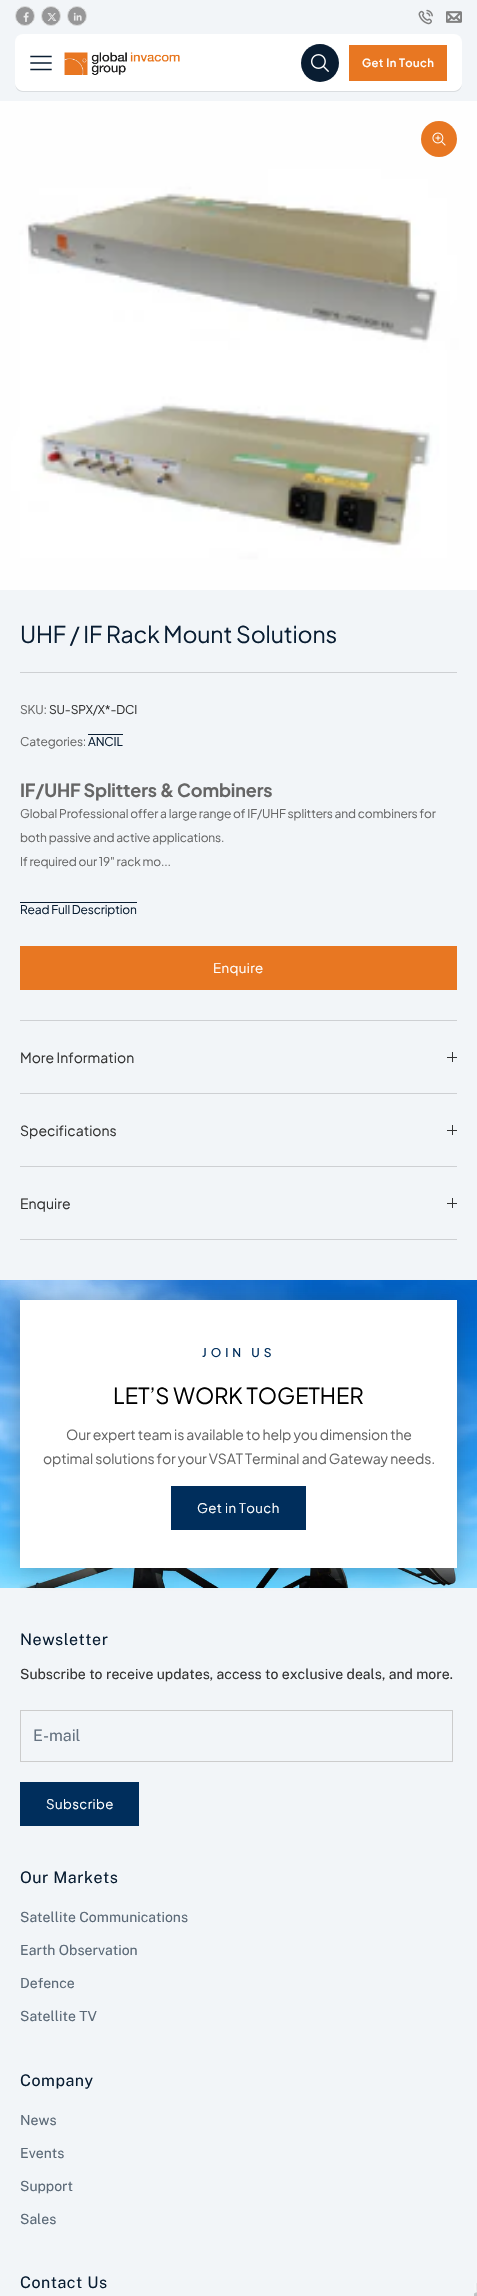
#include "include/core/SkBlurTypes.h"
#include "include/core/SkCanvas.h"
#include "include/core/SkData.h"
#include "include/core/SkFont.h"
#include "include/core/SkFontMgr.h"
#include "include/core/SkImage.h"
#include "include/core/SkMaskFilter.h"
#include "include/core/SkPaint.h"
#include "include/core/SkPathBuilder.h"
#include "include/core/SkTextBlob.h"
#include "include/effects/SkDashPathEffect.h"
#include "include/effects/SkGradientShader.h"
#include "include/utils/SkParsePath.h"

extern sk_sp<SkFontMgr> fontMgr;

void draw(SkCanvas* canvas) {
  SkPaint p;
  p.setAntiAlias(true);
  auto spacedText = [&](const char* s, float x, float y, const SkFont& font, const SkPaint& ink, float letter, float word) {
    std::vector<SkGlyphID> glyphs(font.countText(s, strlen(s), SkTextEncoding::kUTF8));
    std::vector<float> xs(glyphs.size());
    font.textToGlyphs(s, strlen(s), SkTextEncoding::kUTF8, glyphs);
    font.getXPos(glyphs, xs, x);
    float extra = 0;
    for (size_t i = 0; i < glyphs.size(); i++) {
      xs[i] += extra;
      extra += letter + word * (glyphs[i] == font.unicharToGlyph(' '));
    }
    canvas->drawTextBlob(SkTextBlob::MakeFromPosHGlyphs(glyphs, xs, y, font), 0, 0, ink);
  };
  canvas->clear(SkColorSetRGB(242, 245, 248));
  p.setColor(SkColorSetRGB(151, 151, 152));
  canvas->drawCircle(25, 16, 9.5f, p);
  p.setStyle(SkPaint::kStroke_Style);
  p.setStrokeWidth(1);
  p.setColor(SkColorSetRGB(217, 218, 218));
  canvas->drawCircle(25, 16, 9.5f, p);
  canvas->drawImageRect(SkImages::DeferredFromEncodedData(SkData::MakeFromFileName("images/1.png")), SkRect::MakeLTRB(23, 12, 29, 22), SkSamplingOptions());
  p.setStyle(SkPaint::kFill_Style);
  p.setColor(SkColorSetRGB(151, 151, 152));
  canvas->drawCircle(51, 16, 9.5f, p);
  p.setStyle(SkPaint::kStroke_Style);
  p.setColor(SkColorSetRGB(217, 218, 218));
  canvas->drawCircle(51, 16, 9.5f, p);
  canvas->drawImageRect(SkImages::DeferredFromEncodedData(SkData::MakeFromFileName("images/2.png")), SkRect::MakeLTRB(47, 13, 57, 21), SkSamplingOptions());
  p.setStyle(SkPaint::kFill_Style);
  p.setColor(SkColorSetRGB(151, 151, 152));
  canvas->drawCircle(77, 16, 9.5f, p);
  p.setStyle(SkPaint::kStroke_Style);
  p.setColor(SkColorSetRGB(217, 218, 218));
  canvas->drawCircle(77, 16, 9.5f, p);
  canvas->drawImageRect(SkImages::DeferredFromEncodedData(SkData::MakeFromFileName("images/3.png")), SkRect::MakeLTRB(73, 12, 82, 21), SkSamplingOptions());
  canvas->drawImageRect(SkImages::DeferredFromEncodedData(SkData::MakeFromFileName("images/4.png")), SkRect::MakeLTRB(418, 9, 433, 25), SkSamplingOptions());
  canvas->drawImageRect(SkImages::DeferredFromEncodedData(SkData::MakeFromFileName("images/5.png")), SkRect::MakeLTRB(446, 11, 462, 23), SkSamplingOptions());
  p.setStyle(SkPaint::kFill_Style);
  p.setColor(SK_ColorWHITE);
  canvas->drawRoundRect(SkRect::MakeLTRB(15, 34, 462, 92), 8, 8, p);
  p.setColor(SkColorSetARGB(38, 9, 29, 50));
  canvas->drawPath(SkPathBuilder().moveTo(15, 83).cubicTo(15, 88, 18, 92, 23, 92).lineTo(454, 92).cubicTo(459, 92, 462, 88, 462, 83).cubicTo(462, 87, 458, 91, 454, 91).lineTo(23, 91).cubicTo(19, 91, 15, 87, 15, 83).close().detach(), p);
  p.setStyle(SkPaint::kStroke_Style);
  p.setStrokeWidth(1.4f);
  p.setStrokeCap(SkPaint::kSquare_Cap);
  p.setColor(SkColorSetRGB(9, 29, 50));
  canvas->drawPath(SkPathBuilder().moveTo(31, 69.5f).lineTo(51, 69.5f).moveTo(31, 63).lineTo(51, 63).moveTo(31, 56.5f).lineTo(51, 56.5f).detach(), p);
  canvas->drawImageRect(SkImages::DeferredFromEncodedData(SkData::MakeFromFileName("images/6.png")), SkRect::MakeLTRB(64, 52, 180, 75), SkSamplingOptions());
  p.setStyle(SkPaint::kFill_Style);
  canvas->drawCircle(320, 63, 19, p);
  canvas->drawImageRect(SkImages::DeferredFromEncodedData(SkData::MakeFromFileName("images/7.png")), SkRect::MakeLTRB(311, 54, 329, 72), SkSamplingOptions());
  p.setColor(SkColorSetRGB(232, 119, 34));
  canvas->drawRect(SkRect::MakeLTRB(349.5f, 45.5f, 446.5f, 80.5f), p);
  p.setStyle(SkPaint::kStroke_Style);
  p.setStrokeWidth(1);
  p.setStrokeCap(SkPaint::kButt_Cap);
  canvas->drawRect(SkRect::MakeLTRB(349.5f, 45.5f, 446.5f, 80.5f), p);
  canvas->drawImageRect(SkImages::DeferredFromEncodedData(SkData::MakeFromFileName("images/8.png")), SkRect::MakeLTRB(0, 101, 477, 590), SkSamplingOptions());
  p.setStyle(SkPaint::kFill_Style);
  canvas->drawCircle(439, 139, 18, p);
  canvas->drawImageRect(SkImages::DeferredFromEncodedData(SkData::MakeFromFileName("images/9.png")), SkRect::MakeLTRB(432, 132, 446, 146), SkSamplingOptions());
  p.setColor(SkColorSetRGB(206, 208, 211));
  canvas->drawRect(SkRect::MakeLTRB(20, 672, 457, 673), p);
  p.setColor(SkColorSetRGB(9, 29, 50));
  canvas->drawRect(SkRect::MakeLTRB(88, 734, 123, 735), p);
  canvas->drawRect(SkRect::MakeLTRB(20, 902, 137, 903), p);
  p.setColor(SkColorSetRGB(232, 119, 34));
  canvas->drawRect(SkRect::MakeLTRB(20.5f, 946.5f, 456.5f, 989.5f), p);
  p.setStyle(SkPaint::kStroke_Style);
  canvas->drawRect(SkRect::MakeLTRB(20.5f, 946.5f, 456.5f, 989.5f), p);
  p.setStyle(SkPaint::kFill_Style);
  p.setColor(SkColorSetRGB(206, 208, 211));
  canvas->drawRect(SkRect::MakeLTRB(20, 1020, 457, 1021), p);
  canvas->drawRect(SkRect::MakeLTRB(20, 1093, 457, 1094), p);
  p.setColor(SkColorSetRGB(51, 51, 51));
  canvas->drawRect(SkRect::MakeLTRB(452, 1052, 453, 1062), p);
  canvas->drawRect(SkRect::MakeLTRB(447, 1057, 457, 1058), p);
  p.setColor(SkColorSetRGB(206, 208, 211));
  canvas->drawRect(SkRect::MakeLTRB(20, 1166, 457, 1167), p);
  p.setColor(SkColorSetRGB(51, 51, 51));
  canvas->drawRect(SkRect::MakeLTRB(452, 1125, 453, 1135), p);
  canvas->drawRect(SkRect::MakeLTRB(447, 1130, 457, 1131), p);
  p.setColor(SkColorSetRGB(206, 208, 211));
  canvas->drawRect(SkRect::MakeLTRB(20, 1239, 457, 1240), p);
  p.setColor(SkColorSetRGB(51, 51, 51));
  canvas->drawRect(SkRect::MakeLTRB(452, 1198, 453, 1208), p);
  canvas->drawRect(SkRect::MakeLTRB(447, 1203, 457, 1204), p);
  canvas->drawImageRect(SkImages::DeferredFromEncodedData(SkData::MakeFromFileName("images/10.png")), SkRect::MakeLTRB(0, 1280, 477, 1588), SkSamplingOptions());
  p.setColor(SkColorSetARGB(77, 54, 54, 54));
  p.setMaskFilter(SkMaskFilter::MakeBlur(kNormal_SkBlurStyle, 10));
  canvas->drawRect(SkRect::MakeLTRB(20, 1301, 457, 1569), p);
  p.setMaskFilter(nullptr);
  p.setColor(SK_ColorWHITE);
  canvas->drawRect(SkRect::MakeLTRB(20, 1300, 457, 1568), p);
  p.setColor(SkColorSetRGB(0, 46, 92));
  canvas->drawRect(SkRect::MakeLTRB(171.5f, 1486.5f, 305.5f, 1529.5f), p);
  p.setStyle(SkPaint::kStroke_Style);
  canvas->drawRect(SkRect::MakeLTRB(171.5f, 1486.5f, 305.5f, 1529.5f), p);
  canvas->drawImageRect(SkImages::DeferredFromEncodedData(SkData::MakeFromFileName("images/11.png")), SkRect::MakeLTRB(474, 2283, 477, 2296), SkSamplingOptions());
  p.setColor(SkColorSetRGB(204, 204, 204));
  canvas->drawRect(SkRect::MakeLTRB(20.5f, 1710.5f, 452.5f, 1761.5f), p);
  p.setStyle(SkPaint::kFill_Style);
  p.setColor(SkColorSetRGB(0, 46, 92));
  canvas->drawRect(SkRect::MakeLTRB(20.5f, 1782.5f, 138.5f, 1825.5f), p);
  p.setStyle(SkPaint::kStroke_Style);
  canvas->drawRect(SkRect::MakeLTRB(20.5f, 1782.5f, 138.5f, 1825.5f), p);
  SkFont font1(fontMgr->matchFamilyStyle("Plus Jakarta Sans", SkFontStyle(600, SkFontStyle::kNormal_Width, SkFontStyle::kUpright_Slant)), 11.25f);
  font1.setSubpixel(true);
  p.setStyle(SkPaint::kFill_Style);
  p.setColor(SK_ColorWHITE);
  spacedText("Get In Touch", 362, 67, font1, p, 0.4f, 0);
  SkFont font2(fontMgr->matchFamilyStyle("Plus Jakarta Sans", SkFontStyle::Normal()), 23);
  font2.setSubpixel(true);
  p.setColor(SkColorSetRGB(9, 29, 50));
  spacedText("UHF / IF Rack Mount Solutions", 20, 643, font2, p, -0.15f, 0);
  SkFont font3(fontMgr->matchFamilyStyle("Plus Jakarta Sans", SkFontStyle::Normal()), 12);
  font3.setSubpixel(true);
  p.setColor(SkColorSetRGB(102, 102, 102));
  spacedText("SKU:", 20, 714, font3, p, -0.15f, 0);
  p.setColor(SkColorSetRGB(51, 51, 51));
  spacedText("SU-SPX/X*-DCI", 49, 714, font3, p, -0.15f, 0);
  p.setColor(SkColorSetRGB(102, 102, 102));
  spacedText("Categories:", 20, 746, font3, p, -0.15f, 0);
  p.setColor(SkColorSetRGB(9, 29, 50));
  spacedText("ANCIL", 88, 746, font3, p, -0.15f, 0);
  SkFont font4(fontMgr->matchFamilyStyle("Plus Jakarta Sans", SkFontStyle::Bold()), 18);
  font4.setSubpixel(true);
  p.setColor(SkColorSetRGB(102, 102, 102));
  spacedText("IF/UHF Splitters & Combiners", 20, 797, font4, p, -0.15f, 0);
  spacedText("Global Professional offer a large range of IF/UHF splitters and combiners for", 20, 818, font3, p, -0.15f, 0);
  spacedText("both passive and active applications.", 20, 842, font3, p, -0.15f, 0);
  spacedText("If required our 19\" rack mo...", 20, 866, font3, p, -0.15f, 0);
  p.setColor(SkColorSetRGB(9, 29, 50));
  spacedText("Read Full Description", 20, 914, font3, p, -0.15f, 0);
  SkFont font5(fontMgr->matchFamilyStyle("Plus Jakarta Sans", SkFontStyle::Normal()), 13.25f);
  font5.setSubpixel(true);
  p.setColor(SK_ColorWHITE);
  spacedText("Enquire", 213, 973, font5, p, 0.4f, 0);
  SkFont font6(fontMgr->matchFamilyStyle("Plus Jakarta Sans", SkFontStyle::Normal()), 14);
  font6.setSubpixel(true);
  p.setColor(SkColorSetRGB(51, 51, 51));
  canvas->drawString("More Information", 20, 1063, font6, p);
  canvas->drawString("Specifications", 20, 1136, font6, p);
  canvas->drawString("Enquire", 20, 1209, font6, p);
  SkFont font7(fontMgr->matchFamilyStyle("Plus Jakarta Sans", SkFontStyle(500, SkFontStyle::kNormal_Width, SkFontStyle::kUpright_Slant)), 12);
  font7.setSubpixel(true);
  p.setColor(SkColorSetRGB(0, 46, 92));
  spacedText("JOIN US", 202, 1357, font7, p, 4, 0);
  SkFont font8(fontMgr->matchFamilyStyle("Plus Jakarta Sans", SkFontStyle::Normal()), 22);
  font8.setSubpixel(true);
  p.setColor(SK_ColorBLACK);
  canvas->drawString("LET’S WORK TOGETHER", 113, 1404, font8, p);
  p.setColor(SkColorSetRGB(102, 102, 102));
  spacedText("Our expert team is available to help you dimension the", 66, 1440, font6, p, -0.15f, 0);
  spacedText("optimal solutions for your VSAT Terminal and Gateway needs.", 43, 1464, font6, p, -0.15f, 0);
  p.setColor(SK_ColorWHITE);
  spacedText("Get in Touch", 197, 1513, font5, p, 0.4f, 0);
  SkFont font9(fontMgr->matchFamilyStyle("Public Sans", SkFontStyle::Normal()), 16);
  font9.setSubpixel(true);
  p.setColor(SkColorSetRGB(9, 29, 50));
  spacedText("Newsletter", 20, 1645, font9, p, 0.5f, 0);
  SkFont font10(fontMgr->matchFamilyStyle("Public Sans", SkFontStyle::Normal()), 14);
  font10.setSubpixel(true);
  p.setColor(SkColorSetRGB(51, 51, 51));
  canvas->drawString("Subscribe to receive updates, access to exclusive deals, and more.", 20, 1679, font10, p);
  p.setColor(SkColorSetRGB(102, 115, 129));
  canvas->drawString("E-mail", 33, 1741, font9, p);
  p.setColor(SK_ColorWHITE);
  spacedText("Subscribe", 46, 1809, font5, p, 0.4f, 0);
  p.setColor(SkColorSetRGB(9, 29, 50));
  spacedText("Our Markets", 20, 1883, font9, p, 0.5f, 0);
  p.setColor(SkColorSetRGB(91, 105, 119));
  canvas->drawString("Satellite Communications", 20, 1922, font10, p);
  canvas->drawString("Earth Observation", 20, 1955, font10, p);
  canvas->drawString("Defence", 20, 1988, font10, p);
  canvas->drawString("Satellite TV", 20, 2021, font10, p);
  p.setColor(SkColorSetRGB(9, 29, 50));
  spacedText("Company", 20, 2086, font9, p, 0.5f, 0);
  p.setColor(SkColorSetRGB(91, 105, 119));
  canvas->drawString("News", 20, 2125, font10, p);
  canvas->drawString("Events", 20, 2158, font10, p);
  canvas->drawString("Support", 20, 2191, font10, p);
  canvas->drawString("Sales", 20, 2224, font10, p);
  p.setColor(SkColorSetRGB(9, 29, 50));
  spacedText("Contact Us", 20, 2288, font9, p, 0.5f, 0);
}
